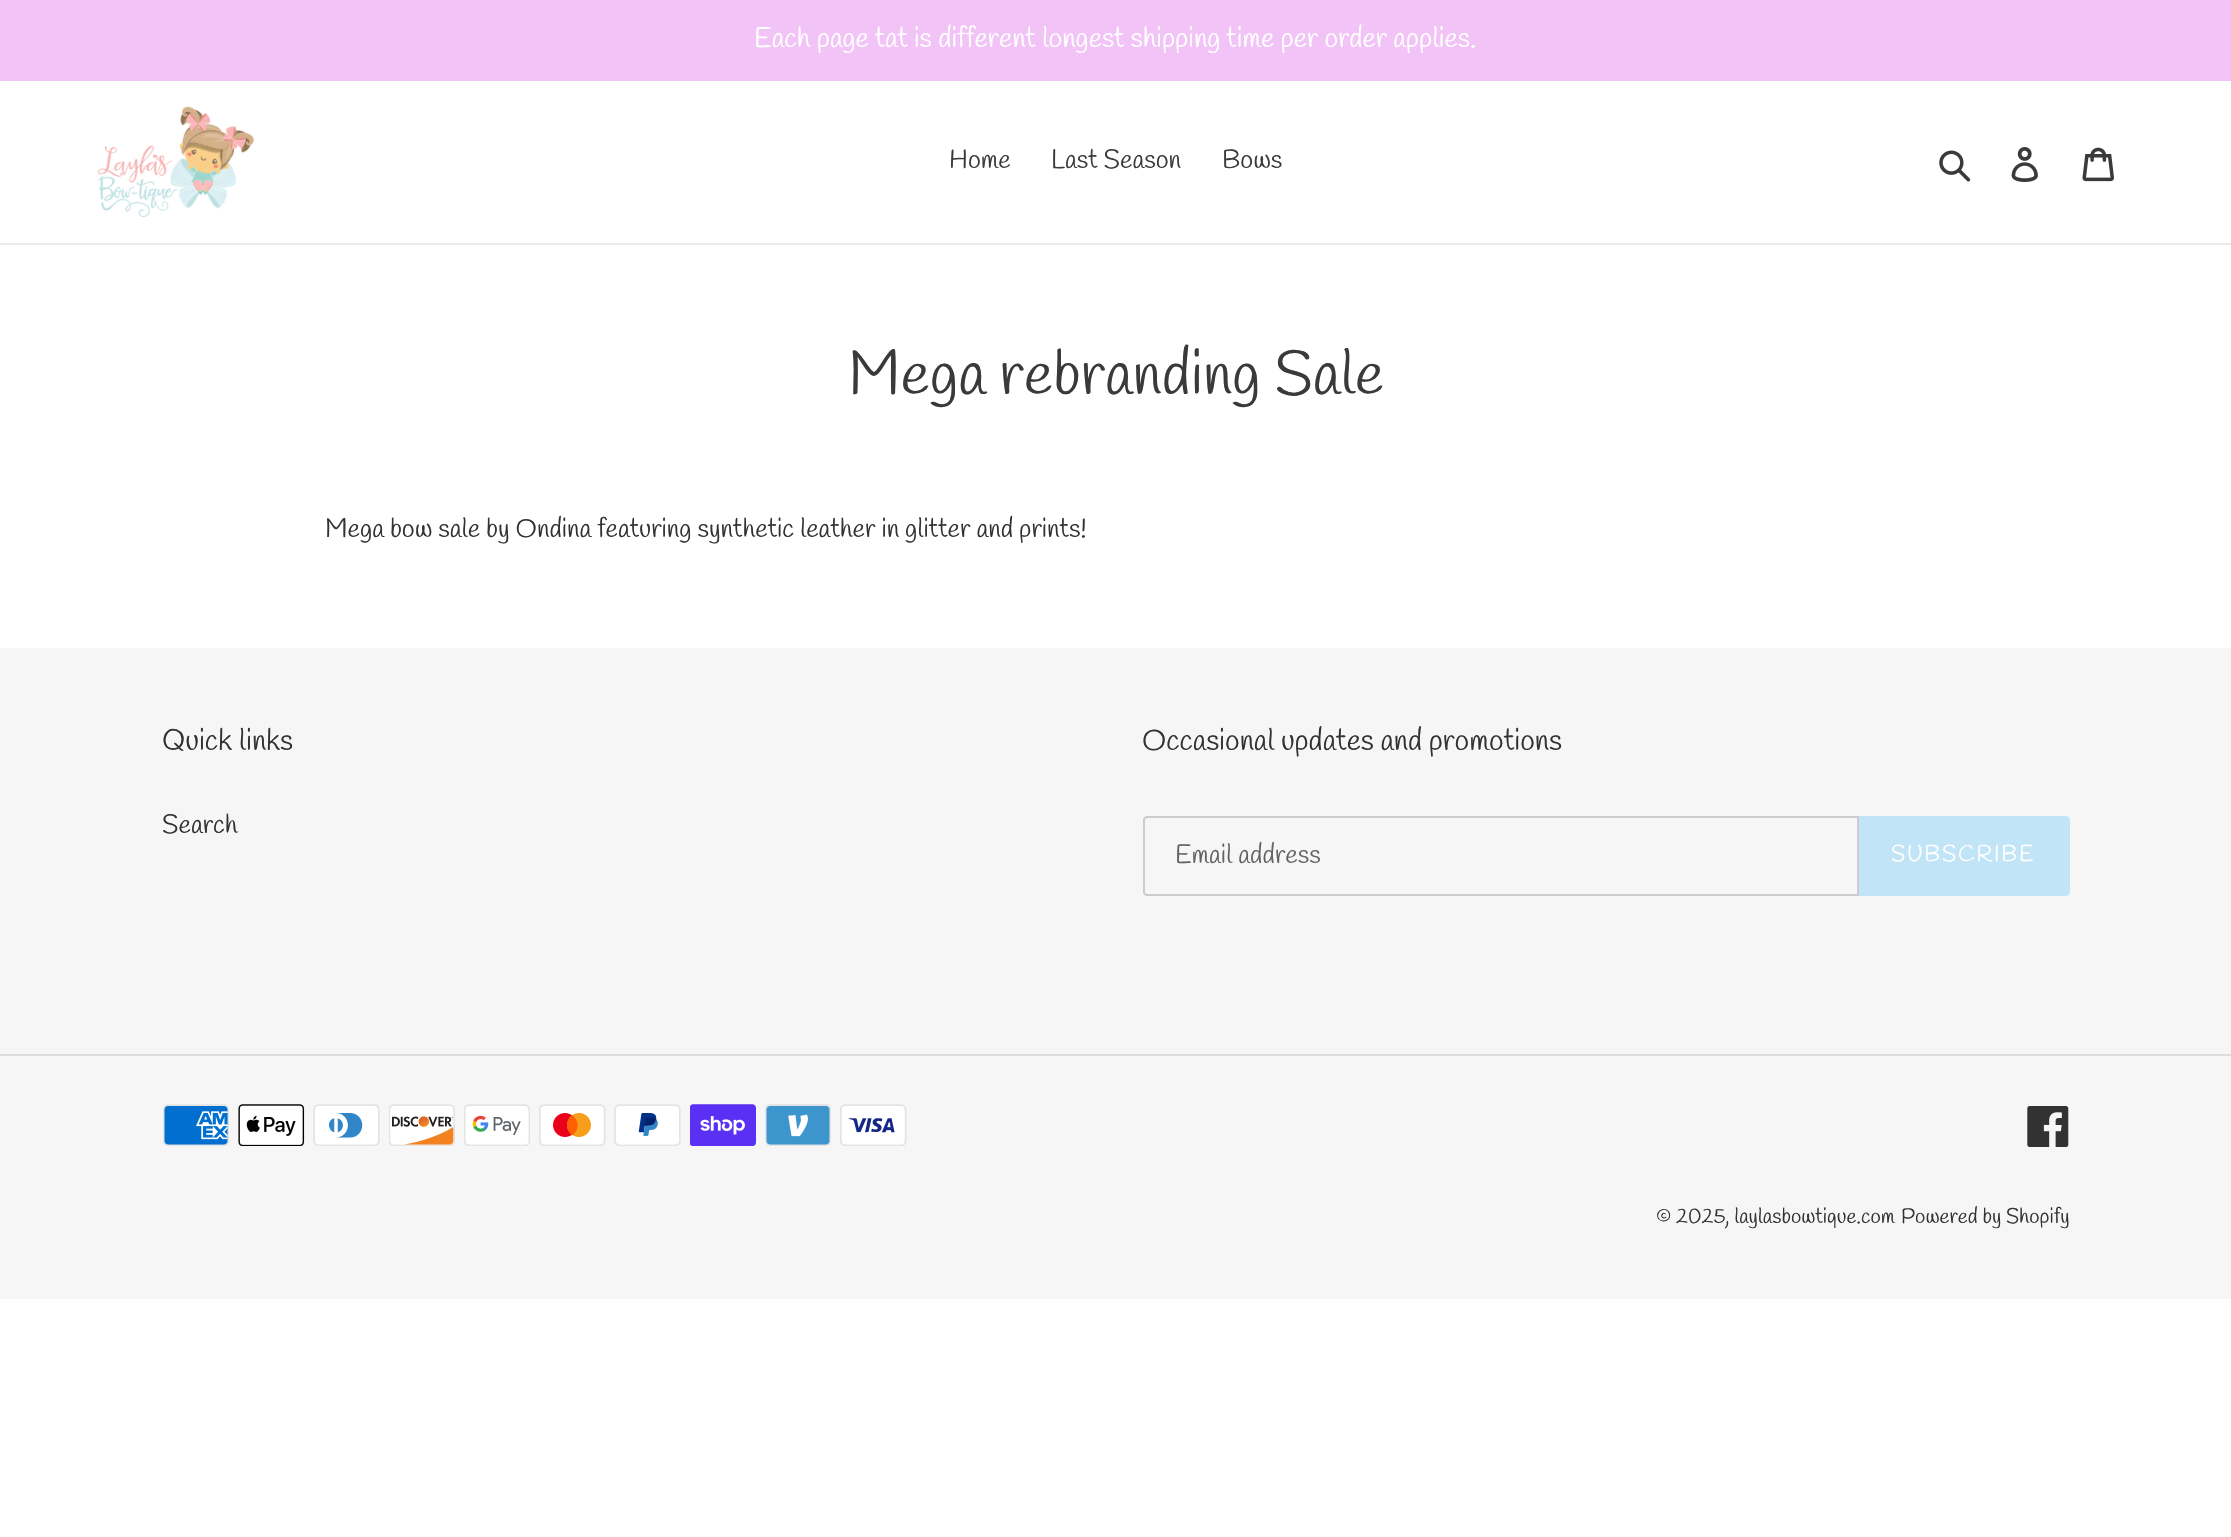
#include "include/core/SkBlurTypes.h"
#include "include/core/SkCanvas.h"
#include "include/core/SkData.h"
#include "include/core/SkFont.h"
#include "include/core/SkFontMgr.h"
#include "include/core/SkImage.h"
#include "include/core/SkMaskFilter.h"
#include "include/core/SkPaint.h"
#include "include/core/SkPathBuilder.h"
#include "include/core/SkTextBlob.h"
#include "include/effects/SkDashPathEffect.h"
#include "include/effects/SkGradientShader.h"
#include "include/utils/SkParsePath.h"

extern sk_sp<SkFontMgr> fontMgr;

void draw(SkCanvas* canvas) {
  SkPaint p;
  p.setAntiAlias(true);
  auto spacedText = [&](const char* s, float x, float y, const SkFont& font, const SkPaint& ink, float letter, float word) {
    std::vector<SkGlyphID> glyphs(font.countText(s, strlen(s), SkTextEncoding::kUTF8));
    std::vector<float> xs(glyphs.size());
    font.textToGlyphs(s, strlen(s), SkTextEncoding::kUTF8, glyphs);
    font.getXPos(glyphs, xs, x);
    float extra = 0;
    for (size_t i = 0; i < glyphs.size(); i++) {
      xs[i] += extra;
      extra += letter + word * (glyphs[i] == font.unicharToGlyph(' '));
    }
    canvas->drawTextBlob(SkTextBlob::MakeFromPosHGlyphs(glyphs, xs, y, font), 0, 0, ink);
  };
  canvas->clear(SK_ColorWHITE);
  p.setColor(SkColorSetRGB(242, 195, 247));
  canvas->drawRect(SkRect::MakeLTRB(0, 0, 2231, 81), p);
  p.setColor(SkColorSetRGB(235, 235, 235));
  canvas->drawRect(SkRect::MakeLTRB(0, 243, 2231, 245), p);
  canvas->drawImageRect(SkImages::DeferredFromEncodedData(SkData::MakeFromFileName("images/1.png")), SkRect::MakeLTRB(97, 106, 254, 217), SkSamplingOptions());
  canvas->drawImageRect(SkImages::DeferredFromEncodedData(SkData::MakeFromFileName("images/2.png")), SkRect::MakeLTRB(1939, 150, 1971, 182), SkSamplingOptions());
  canvas->drawImageRect(SkImages::DeferredFromEncodedData(SkData::MakeFromFileName("images/3.png")), SkRect::MakeLTRB(2011, 147, 2038, 182), SkSamplingOptions());
  canvas->drawImageRect(SkImages::DeferredFromEncodedData(SkData::MakeFromFileName("images/4.png")), SkRect::MakeLTRB(2082, 147, 2114, 182), SkSamplingOptions());
  p.setColor(SkColorSetRGB(246, 246, 246));
  canvas->drawRect(SkRect::MakeLTRB(0, 648, 2231, 1299), p);
  p.setStyle(SkPaint::kStroke_Style);
  p.setStrokeWidth(2);
  p.setColor(SkColorSetRGB(204, 204, 204));
  canvas->drawPath(SkPathBuilder().moveTo(1147, 817).lineTo(1858, 817).lineTo(1858, 895).lineTo(1147, 895).cubicTo(1145.5f, 895, 1144, 893.5f, 1144, 892).lineTo(1144, 820).cubicTo(1144, 818.5f, 1145.5f, 817, 1147, 817).close().detach(), p);
  p.setStyle(SkPaint::kFill_Style);
  p.setColor(SkColorSetRGB(193, 228, 247));
  canvas->drawPath(SkPathBuilder().moveTo(1859, 816).lineTo(2066, 816).cubicTo(2068, 816, 2070, 818, 2070, 820).lineTo(2070, 892).cubicTo(2070, 894, 2068, 896, 2066, 896).lineTo(1859, 896).close().detach(), p);
  p.setColor(SkColorSetRGB(221, 221, 221));
  canvas->drawRect(SkRect::MakeLTRB(0, 1054, 2231, 1056), p);
  canvas->drawImageRect(SkImages::DeferredFromEncodedData(SkData::MakeFromFileName("images/5.png")), SkRect::MakeLTRB(163, 1104, 229, 1146), SkSamplingOptions());
  canvas->drawImageRect(SkImages::DeferredFromEncodedData(SkData::MakeFromFileName("images/6.png")), SkRect::MakeLTRB(238, 1104, 305, 1146), SkSamplingOptions());
  canvas->drawImageRect(SkImages::DeferredFromEncodedData(SkData::MakeFromFileName("images/7.png")), SkRect::MakeLTRB(313, 1104, 380, 1146), SkSamplingOptions());
  canvas->drawImageRect(SkImages::DeferredFromEncodedData(SkData::MakeFromFileName("images/8.png")), SkRect::MakeLTRB(389, 1104, 455, 1146), SkSamplingOptions());
  canvas->drawImageRect(SkImages::DeferredFromEncodedData(SkData::MakeFromFileName("images/9.png")), SkRect::MakeLTRB(464, 1104, 530, 1146), SkSamplingOptions());
  canvas->drawImageRect(SkImages::DeferredFromEncodedData(SkData::MakeFromFileName("images/10.png")), SkRect::MakeLTRB(539, 1104, 606, 1146), SkSamplingOptions());
  canvas->drawImageRect(SkImages::DeferredFromEncodedData(SkData::MakeFromFileName("images/11.png")), SkRect::MakeLTRB(614, 1104, 681, 1146), SkSamplingOptions());
  canvas->drawImageRect(SkImages::DeferredFromEncodedData(SkData::MakeFromFileName("images/12.png")), SkRect::MakeLTRB(690, 1104, 756, 1146), SkSamplingOptions());
  canvas->drawImageRect(SkImages::DeferredFromEncodedData(SkData::MakeFromFileName("images/13.png")), SkRect::MakeLTRB(765, 1104, 831, 1146), SkSamplingOptions());
  canvas->drawImageRect(SkImages::DeferredFromEncodedData(SkData::MakeFromFileName("images/14.png")), SkRect::MakeLTRB(840, 1104, 907, 1146), SkSamplingOptions());
  canvas->drawImageRect(SkImages::DeferredFromEncodedData(SkData::MakeFromFileName("images/15.png")), SkRect::MakeLTRB(2027, 1106, 2069, 1147), SkSamplingOptions());
  SkFont font1(fontMgr->matchFamilyStyle("Handlee", SkFontStyle::Normal()), 28);
  font1.setSubpixel(true);
  p.setColor(SK_ColorWHITE);
  canvas->drawString("Each page tat is different longest shipping time per order applies.", 754, 47, font1, p);
  SkFont font2(fontMgr->matchFamilyStyle("Handlee", SkFontStyle::Normal()), 26.25f);
  font2.setSubpixel(true);
  p.setColor(SkColorSetRGB(58, 58, 58));
  canvas->drawString("Home", 949, 168, font2, p);
  canvas->drawString("Last Season", 1051, 168, font2, p);
  canvas->drawString("Bows", 1222, 168, font2, p);
  SkFont font3(fontMgr->matchFamilyStyle("Handlee", SkFontStyle::Normal()), 61.25f);
  font3.setSubpixel(true);
  canvas->drawString("Mega rebranding Sale", 848, 394, font3, p);
  p.setColor(SkColorSetRGB(51, 50, 50));
  canvas->drawString("Mega bow sale by Ondina featuring synthetic leather in glitter and prints!", 325, 537, font2, p);
  SkFont font4(fontMgr->matchFamilyStyle("Handlee", SkFontStyle::Normal()), 29.75f);
  font4.setSubpixel(true);
  canvas->drawString("Quick links", 162, 750, font4, p);
  canvas->drawString("Search", 162, 833, font2, p);
  canvas->drawString("Occasional updates and promotions", 1142, 750, font4, p);
  p.setColor(SkColorSetRGB(98, 98, 98));
  canvas->drawString("Email address", 1175, 863, font2, p);
  SkFont font5(fontMgr->matchFamilyStyle("Handlee", SkFontStyle::Normal()), 22.75f);
  font5.setSubpixel(true);
  p.setColor(SK_ColorWHITE);
  spacedText("SUBSCRIBE", 1891, 861, font5, p, 1.75f, 0);
  SkFont font6(fontMgr->matchFamilyStyle("Handlee", SkFontStyle::Normal()), 21);
  font6.setSubpixel(true);
  p.setColor(SkColorSetRGB(51, 50, 50));
  canvas->drawString("© 2025, laylasbowtique.com", 1656, 1223, font6, p);
  canvas->drawString("Powered by Shopify", 1901, 1223, font6, p);
}
